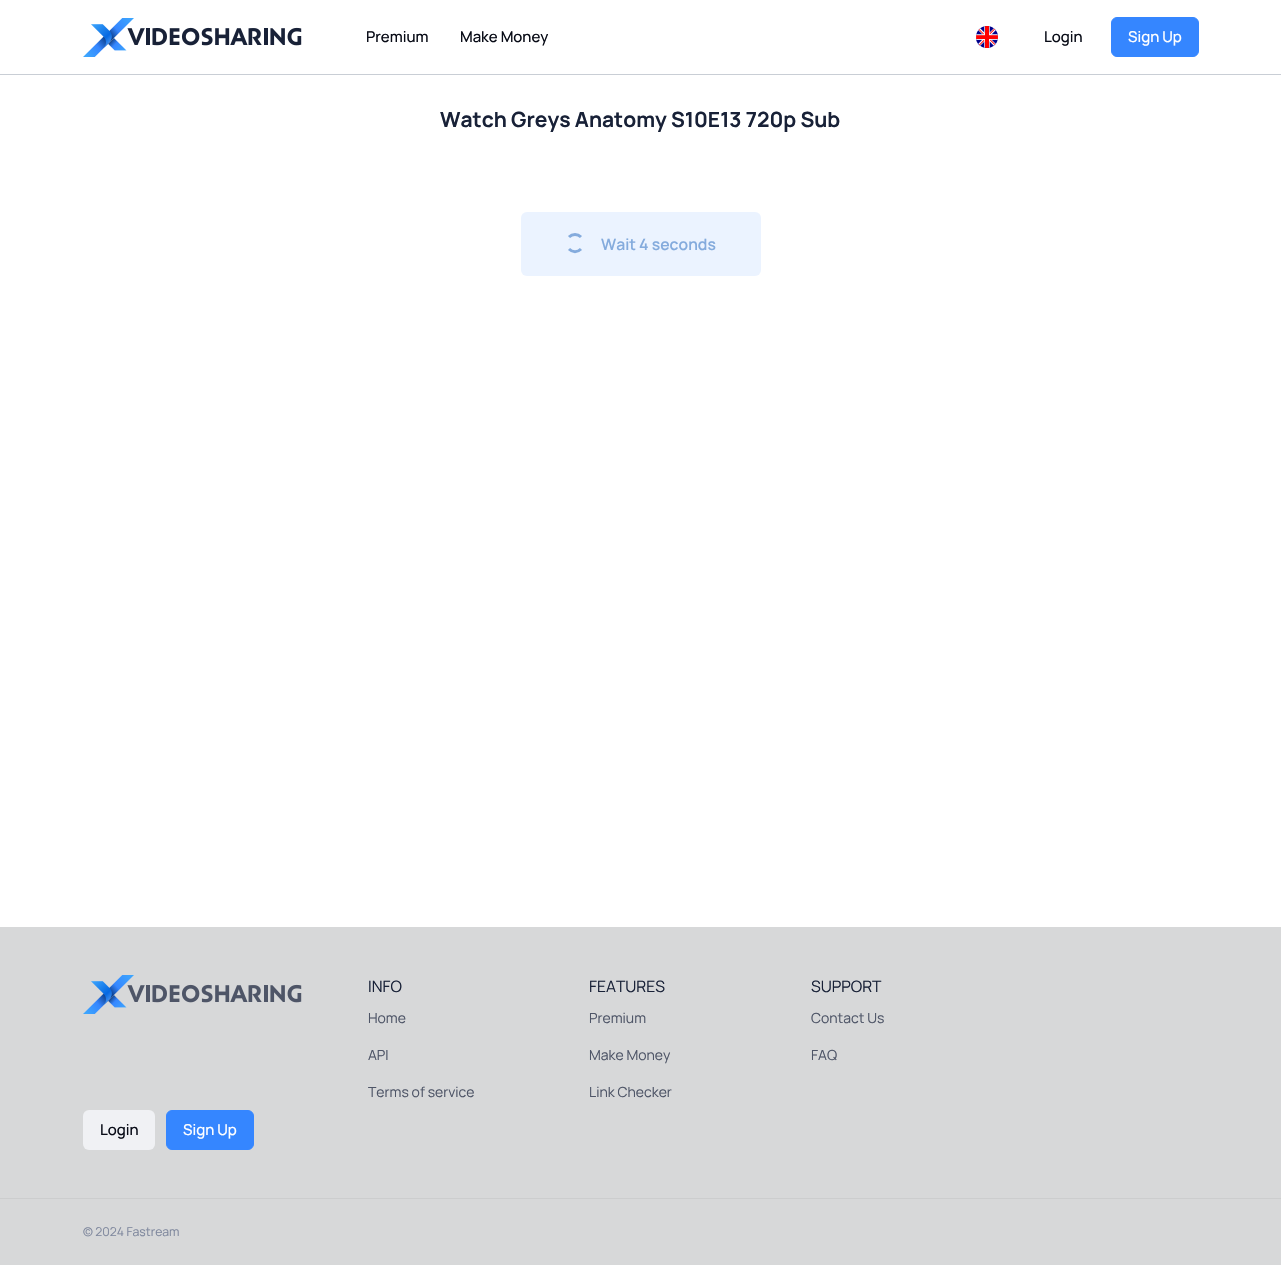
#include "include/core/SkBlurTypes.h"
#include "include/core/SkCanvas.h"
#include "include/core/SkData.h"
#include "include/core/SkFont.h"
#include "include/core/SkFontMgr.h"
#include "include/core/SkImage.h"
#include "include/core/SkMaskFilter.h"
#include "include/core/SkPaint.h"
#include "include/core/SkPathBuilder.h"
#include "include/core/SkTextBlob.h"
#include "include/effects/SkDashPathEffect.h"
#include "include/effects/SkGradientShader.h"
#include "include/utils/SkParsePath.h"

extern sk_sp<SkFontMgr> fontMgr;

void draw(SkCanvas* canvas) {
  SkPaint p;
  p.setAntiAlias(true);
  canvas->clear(SK_ColorWHITE);
  p.setColor(SkColorSetRGB(201, 206, 213));
  canvas->drawRect(SkRect::MakeLTRB(0, 74, 1281, 75), p);
  canvas->drawImageRect(SkImages::DeferredFromEncodedData(SkData::MakeFromFileName("images/1.png")), SkRect::MakeLTRB(83, 18, 302, 57), SkSamplingOptions());
  canvas->drawImageRect(SkImages::DeferredFromEncodedData(SkData::MakeFromFileName("images/2.png")), SkRect::MakeLTRB(976, 26, 998, 48), SkSamplingOptions());
  p.setColor(SkColorSetRGB(53, 134, 255));
  canvas->drawRoundRect(SkRect::MakeLTRB(1111.5f, 17.5f, 1198.5f, 56.5f), 5.5f, 5.5f, p);
  p.setStyle(SkPaint::kStroke_Style);
  p.setStrokeWidth(1);
  canvas->drawRoundRect(SkRect::MakeLTRB(1111.5f, 17.5f, 1198.5f, 56.5f), 5.5f, 5.5f, p);
  p.setStyle(SkPaint::kFill_Style);
  p.setColor(SkColorSetRGB(235, 243, 255));
  canvas->drawRoundRect(SkRect::MakeLTRB(521, 212, 761, 276), 6, 6, p);
  p.setStyle(SkPaint::kStroke_Style);
  p.setStrokeWidth(3);
  p.setColor(SkColorSetRGB(132, 171, 221));
  canvas->drawPath(SkPathBuilder().moveTo(569, 237).cubicTo(572.5f, 233.5f, 577.5f, 233.5f, 581, 237).moveTo(581, 249).cubicTo(577.5f, 252.5f, 572.5f, 252.5f, 569, 249).detach(), p);
  p.setStyle(SkPaint::kFill_Style);
  p.setColor(SkColorSetRGB(215, 216, 217));
  canvas->drawRect(SkRect::MakeLTRB(0, 927, 1281, 1265), p);
  canvas->drawImageRect(SkImages::DeferredFromEncodedData(SkData::MakeFromFileName("images/3.png")), SkRect::MakeLTRB(83, 975, 302, 1014), SkSamplingOptions());
  p.setColor(SkColorSetRGB(240, 241, 244));
  canvas->drawRoundRect(SkRect::MakeLTRB(83, 1110, 155, 1150), 6, 6, p);
  p.setColor(SkColorSetRGB(53, 134, 255));
  canvas->drawRoundRect(SkRect::MakeLTRB(166.5f, 1110.5f, 253.5f, 1149.5f), 5.5f, 5.5f, p);
  p.setStyle(SkPaint::kStroke_Style);
  p.setStrokeWidth(1);
  canvas->drawRoundRect(SkRect::MakeLTRB(166.5f, 1110.5f, 253.5f, 1149.5f), 5.5f, 5.5f, p);
  p.setStyle(SkPaint::kFill_Style);
  p.setColor(SkColorSetRGB(204, 205, 206));
  canvas->drawRect(SkRect::MakeLTRB(0, 1198, 1281, 1199), p);
  SkFont font1(fontMgr->matchFamilyStyle("Manrope", SkFontStyle(500, SkFontStyle::kNormal_Width, SkFontStyle::kUpright_Slant)), 15);
  font1.setSubpixel(true);
  p.setColor(SkColorSetRGB(8, 11, 22));
  canvas->drawString("Premium", 366, 42, font1, p);
  canvas->drawString("Make Money", 460, 42, font1, p);
  canvas->drawString("Login", 1044, 42, font1, p);
  p.setColor(SK_ColorWHITE);
  canvas->drawString("Sign Up", 1128, 42, font1, p);
  SkFont font2(fontMgr->matchFamilyStyle("Manrope", SkFontStyle::Bold()), 21);
  font2.setSubpixel(true);
  p.setColor(SkColorSetRGB(24, 33, 55));
  canvas->drawString("Watch Greys Anatomy S10E13 720p Sub", 440, 127, font2, p);
  SkFont font3(fontMgr->matchFamilyStyle("Manrope", SkFontStyle(600, SkFontStyle::kNormal_Width, SkFontStyle::kUpright_Slant)), 15.75f);
  font3.setSubpixel(true);
  p.setColor(SkColorSetRGB(132, 171, 221));
  canvas->drawString("Wait 4 seconds", 601, 250, font3, p);
  SkFont font4(fontMgr->matchFamilyStyle("Manrope", SkFontStyle::Normal()), 15.75f);
  font4.setSubpixel(true);
  p.setColor(SkColorSetRGB(24, 33, 55));
  canvas->drawString("INFO", 368, 992, font4, p);
  SkFont font5(fontMgr->matchFamilyStyle("Manrope", SkFontStyle::Normal()), 14);
  font5.setSubpixel(true);
  p.setColor(SkColorSetRGB(78, 85, 103));
  canvas->drawString("Home", 368, 1023, font5, p);
  canvas->drawString("API", 368, 1060, font5, p);
  canvas->drawString("Terms of service", 368, 1097, font5, p);
  p.setColor(SkColorSetRGB(24, 33, 55));
  canvas->drawString("FEATURES", 589, 992, font4, p);
  p.setColor(SkColorSetRGB(78, 85, 103));
  canvas->drawString("Premium", 589, 1023, font5, p);
  canvas->drawString("Make Money", 589, 1060, font5, p);
  canvas->drawString("Link Checker", 589, 1097, font5, p);
  p.setColor(SkColorSetRGB(24, 33, 55));
  canvas->drawString("SUPPORT", 811, 992, font4, p);
  p.setColor(SkColorSetRGB(78, 85, 103));
  canvas->drawString("Contact Us", 811, 1023, font5, p);
  canvas->drawString("FAQ", 811, 1060, font5, p);
  p.setColor(SkColorSetRGB(8, 11, 22));
  canvas->drawString("Login", 100, 1135, font1, p);
  p.setColor(SK_ColorWHITE);
  canvas->drawString("Sign Up", 183, 1135, font1, p);
  SkFont font6(fontMgr->matchFamilyStyle("Manrope", SkFontStyle::Normal()), 12.25f);
  font6.setSubpixel(true);
  p.setColor(SkColorSetRGB(126, 135, 157));
  canvas->drawString("© 2024 Fastream", 83, 1236, font6, p);
}
